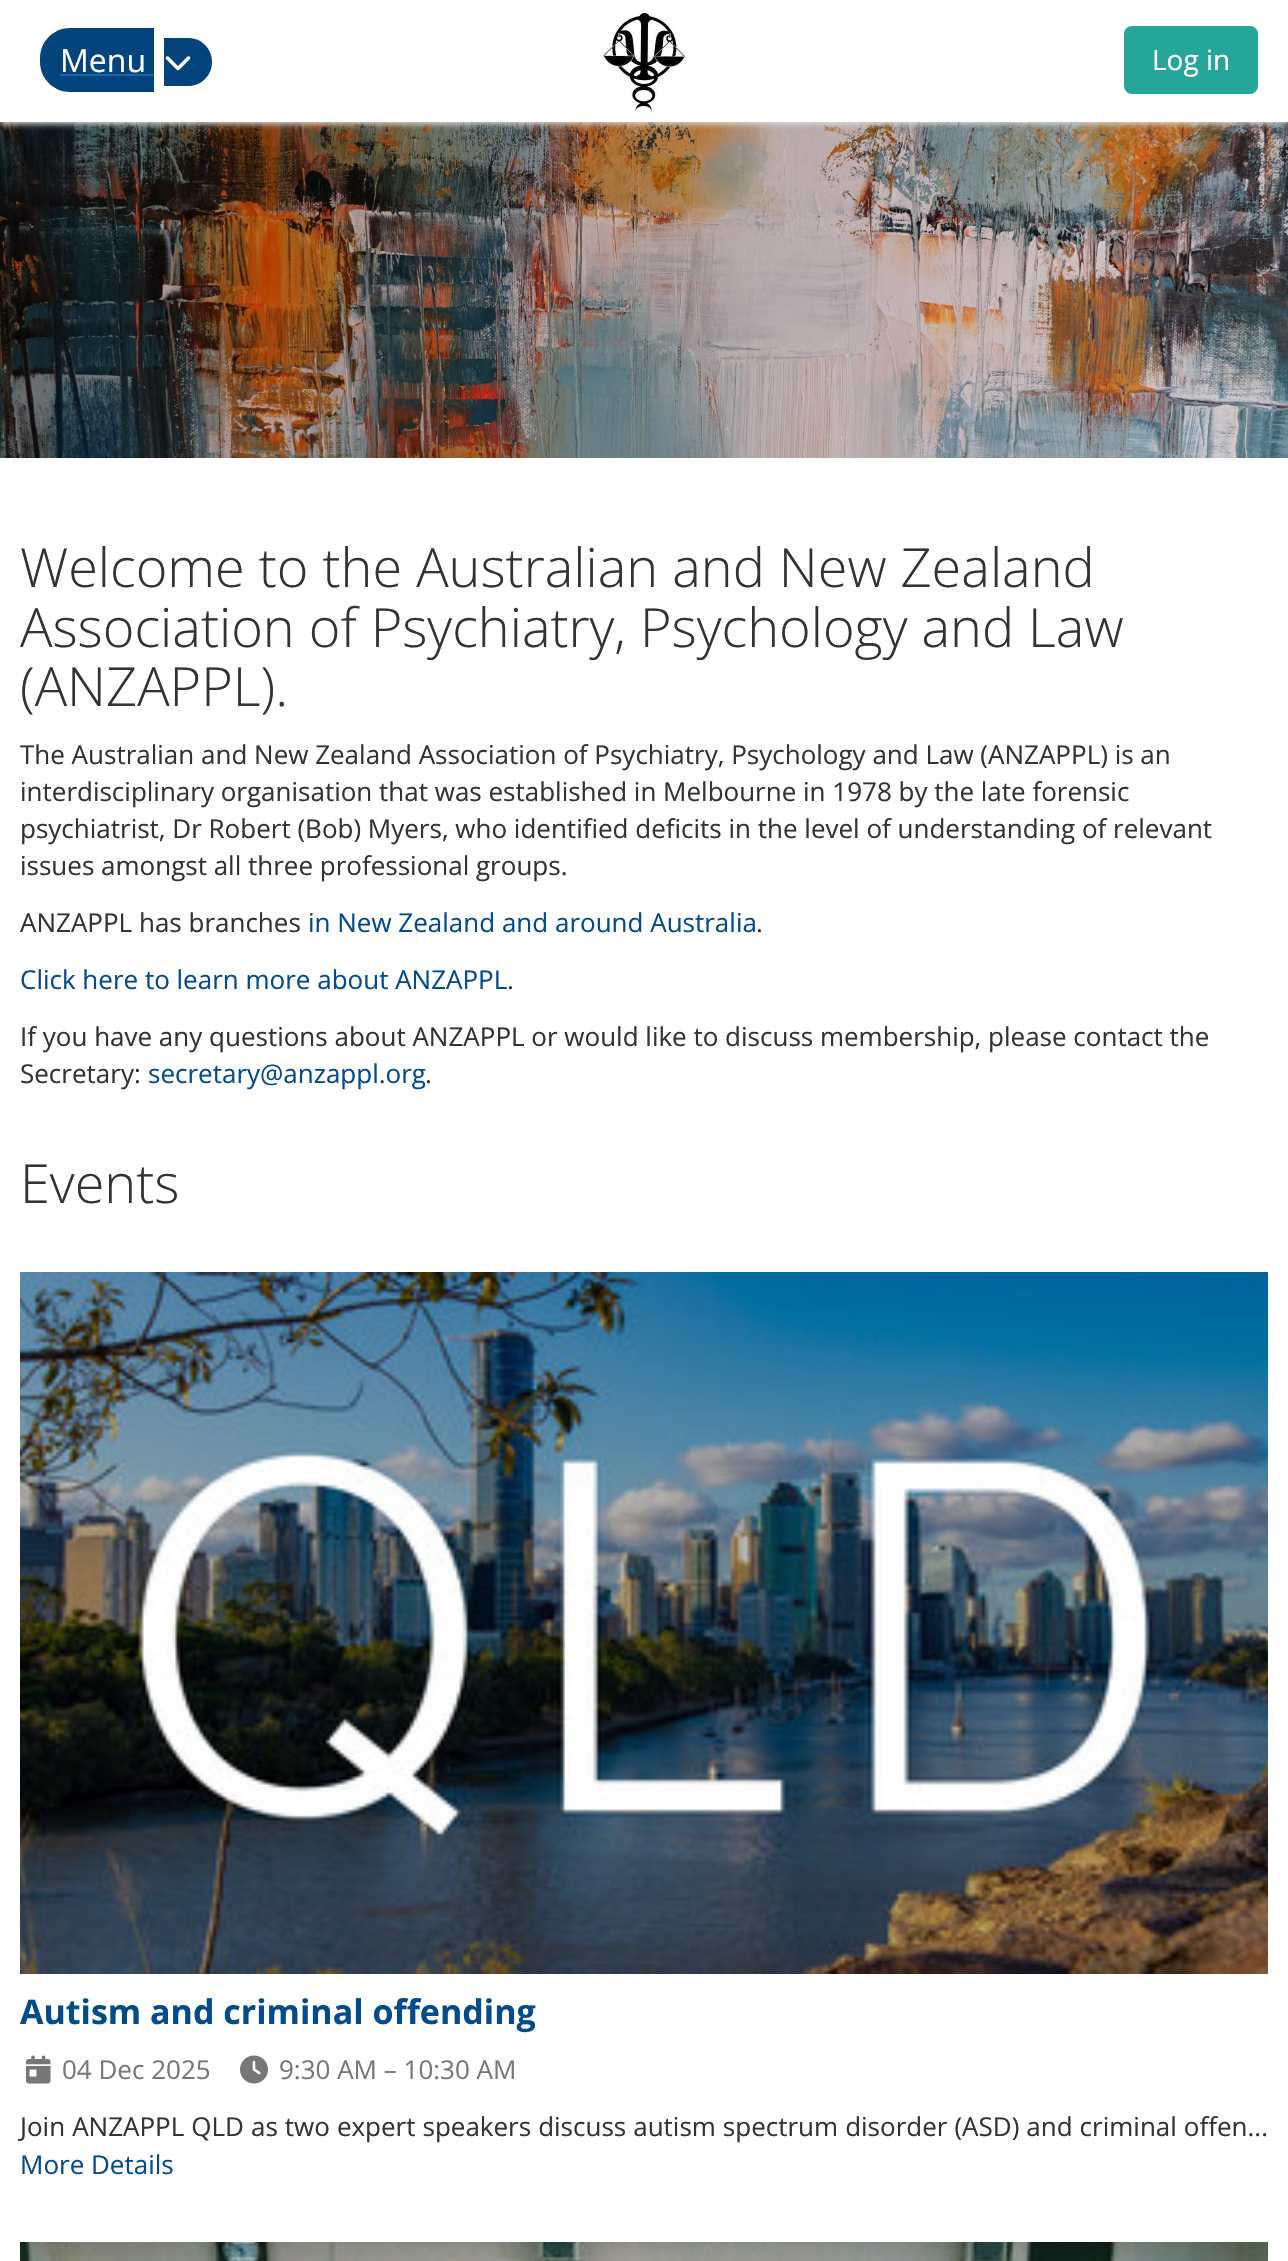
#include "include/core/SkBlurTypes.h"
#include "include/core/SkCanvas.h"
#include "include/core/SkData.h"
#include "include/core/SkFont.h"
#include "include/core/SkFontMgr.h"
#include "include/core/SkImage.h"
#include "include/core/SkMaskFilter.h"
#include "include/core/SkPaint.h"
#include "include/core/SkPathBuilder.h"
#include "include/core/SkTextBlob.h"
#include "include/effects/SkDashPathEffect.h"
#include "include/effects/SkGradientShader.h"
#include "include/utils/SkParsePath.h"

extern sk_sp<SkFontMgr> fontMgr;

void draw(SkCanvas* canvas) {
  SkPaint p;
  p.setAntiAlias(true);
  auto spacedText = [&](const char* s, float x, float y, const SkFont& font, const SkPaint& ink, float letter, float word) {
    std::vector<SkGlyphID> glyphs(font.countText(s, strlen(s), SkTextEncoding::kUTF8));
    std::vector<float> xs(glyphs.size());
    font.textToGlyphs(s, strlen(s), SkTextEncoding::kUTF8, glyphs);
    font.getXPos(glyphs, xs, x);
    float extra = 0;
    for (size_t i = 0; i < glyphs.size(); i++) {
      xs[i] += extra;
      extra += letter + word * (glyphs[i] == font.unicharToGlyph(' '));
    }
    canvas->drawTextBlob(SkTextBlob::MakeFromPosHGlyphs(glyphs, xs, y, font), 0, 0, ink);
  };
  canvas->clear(SK_ColorWHITE);
  canvas->drawImageRect(SkImages::DeferredFromEncodedData(SkData::MakeFromFileName("images/3.png")), SkRect::MakeLTRB(0, 122, 1288, 458), SkSamplingOptions());
  canvas->save();
  canvas->clipRect(SkRect::MakeLTRB(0, 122, 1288, 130));
  p.setColor(SkColorSetRGB(221, 221, 221));
  p.setMaskFilter(SkMaskFilter::MakeBlur(kNormal_SkBlurStyle, 3));
  canvas->drawRect(SkRect::MakeLTRB(0, 2, 1288, 124), p);
  p.setMaskFilter(nullptr);
  canvas->restore();
  p.setColor(SkColorSetRGB(3, 68, 124));
  canvas->drawPath(SkPathBuilder().moveTo(70, 28).lineTo(154, 28).lineTo(154, 92).lineTo(70, 92).cubicTo(53.5f, 92, 40, 78.5f, 40, 62).lineTo(40, 58).cubicTo(40, 41.5f, 53.5f, 28, 70, 28).close().detach(), p);
  canvas->drawPath(SkPathBuilder().moveTo(164, 38).lineTo(188, 38).cubicTo(201.5f, 38, 212, 48.5f, 212, 62).cubicTo(212, 75.5f, 201.5f, 86, 188, 86).lineTo(164, 86).close().detach(), p);
  p.setColor(SkColorSetRGB(29, 101, 164));
  canvas->drawRect(SkRect::MakeLTRB(60, 74, 154, 76), p);
  canvas->drawImageRect(SkImages::DeferredFromEncodedData(SkData::MakeFromFileName("images/1.png")), SkRect::MakeLTRB(165, 56, 191, 71), SkSamplingOptions());
  canvas->drawImageRect(SkImages::DeferredFromEncodedData(SkData::MakeFromFileName("images/2.png")), SkRect::MakeLTRB(602, 12, 686, 112), SkSamplingOptions());
  p.setColor(SkColorSetRGB(38, 166, 154));
  canvas->drawRoundRect(SkRect::MakeLTRB(1124, 26, 1258, 94), 8, 8, p);
  canvas->drawImageRect(SkImages::DeferredFromEncodedData(SkData::MakeFromFileName("images/4.png")), SkRect::MakeLTRB(20, 1272, 1268, 1974), SkSamplingOptions());
  canvas->drawImageRect(SkImages::DeferredFromEncodedData(SkData::MakeFromFileName("images/5.png")), SkRect::MakeLTRB(26, 2055, 51, 2084), SkSamplingOptions());
  canvas->drawImageRect(SkImages::DeferredFromEncodedData(SkData::MakeFromFileName("images/6.png")), SkRect::MakeLTRB(240, 2055, 268, 2084), SkSamplingOptions());
  canvas->drawImageRect(SkImages::DeferredFromEncodedData(SkData::MakeFromFileName("images/7.png")), SkRect::MakeLTRB(20, 2242, 1268, 2261), SkSamplingOptions());
  SkFont font1(fontMgr->matchFamilyStyle("Open Sans", SkFontStyle::Normal()), 32);
  font1.setSubpixel(true);
  p.setColor(SK_ColorWHITE);
  canvas->drawString("Menu", 60, 72, font1, p);
  SkFont font2(fontMgr->matchFamilyStyle("Open Sans", SkFontStyle::Normal()), 28);
  font2.setSubpixel(true);
  canvas->drawString("Log in", 1152, 70, font2, p);
  SkFont font3(fontMgr->matchFamilyStyle("Open Sans", SkFontStyle(300, SkFontStyle::kNormal_Width, SkFontStyle::kUpright_Slant)), 54);
  font3.setSubpixel(true);
  p.setColor(SkColorSetRGB(51, 51, 51));
  canvas->drawString("Welcome to the Australian and New Zealand", 20, 587, font3, p);
  canvas->drawString("Association of Psychiatry, Psychology and Law", 20, 647, font3, p);
  canvas->drawString("(ANZAPPL).", 20, 706, font3, p);
  SkFont font4(fontMgr->matchFamilyStyle("Open Sans", SkFontStyle::Normal()), 26);
  font4.setSubpixel(true);
  canvas->drawString("The Australian and New Zealand Association of Psychiatry, Psychology and Law (ANZAPPL) is an", 20, 764, font4, p);
  canvas->drawString("interdisciplinary organisation that was established in Melbourne in 1978 by the late forensic", 20, 801, font4, p);
  canvas->drawString("psychiatrist, Dr Robert (Bob) Myers, who identified deficits in the level of understanding of relevant", 20, 838, font4, p);
  canvas->drawString("issues amongst all three professional groups.", 20, 875, font4, p);
  canvas->drawString("ANZAPPL has branches", 20, 932, font4, p);
  p.setColor(SkColorSetRGB(3, 75, 138));
  canvas->drawString("in New Zealand and around Australia", 308, 932, font4, p);
  p.setColor(SkColorSetRGB(51, 51, 51));
  canvas->drawString(".", 756, 932, font4, p);
  p.setColor(SkColorSetRGB(3, 75, 138));
  canvas->drawString("Click here to learn more about ANZAPPL", 20, 989, font4, p);
  p.setColor(SkColorSetRGB(51, 51, 51));
  canvas->drawString(".", 507, 989, font4, p);
  canvas->drawString("If you have any questions about ANZAPPL or would like to discuss membership, please contact the", 20, 1046, font4, p);
  canvas->drawString("Secretary:", 20, 1083, font4, p);
  p.setColor(SkColorSetRGB(3, 75, 138));
  canvas->drawString("secretary@anzappl.org", 148, 1083, font4, p);
  p.setColor(SkColorSetRGB(51, 51, 51));
  canvas->drawString(".", 425, 1083, font4, p);
  canvas->drawString("Events", 20, 1203, font3, p);
  SkFont font5(fontMgr->matchFamilyStyle("Open Sans", SkFontStyle::Bold()), 34);
  font5.setSubpixel(true);
  p.setColor(SkColorSetRGB(3, 75, 138));
  canvas->drawString("Autism and criminal offending", 20, 2024, font5, p);
  p.setColor(SkColorSetRGB(119, 119, 119));
  canvas->drawString("04 Dec 2025", 62, 2079, font4, p);
  canvas->drawString("9:30 AM – 10:30 AM", 279, 2079, font4, p);
  p.setColor(SkColorSetRGB(51, 51, 51));
  spacedText("Join ANZAPPL QLD as two expert speakers discuss autism spectrum disorder (ASD) and criminal offen...", 20, 2136, font4, p, 0, 0.25f);
  p.setColor(SkColorSetRGB(3, 75, 138));
  canvas->drawString("More Details", 20, 2174, font4, p);
}
